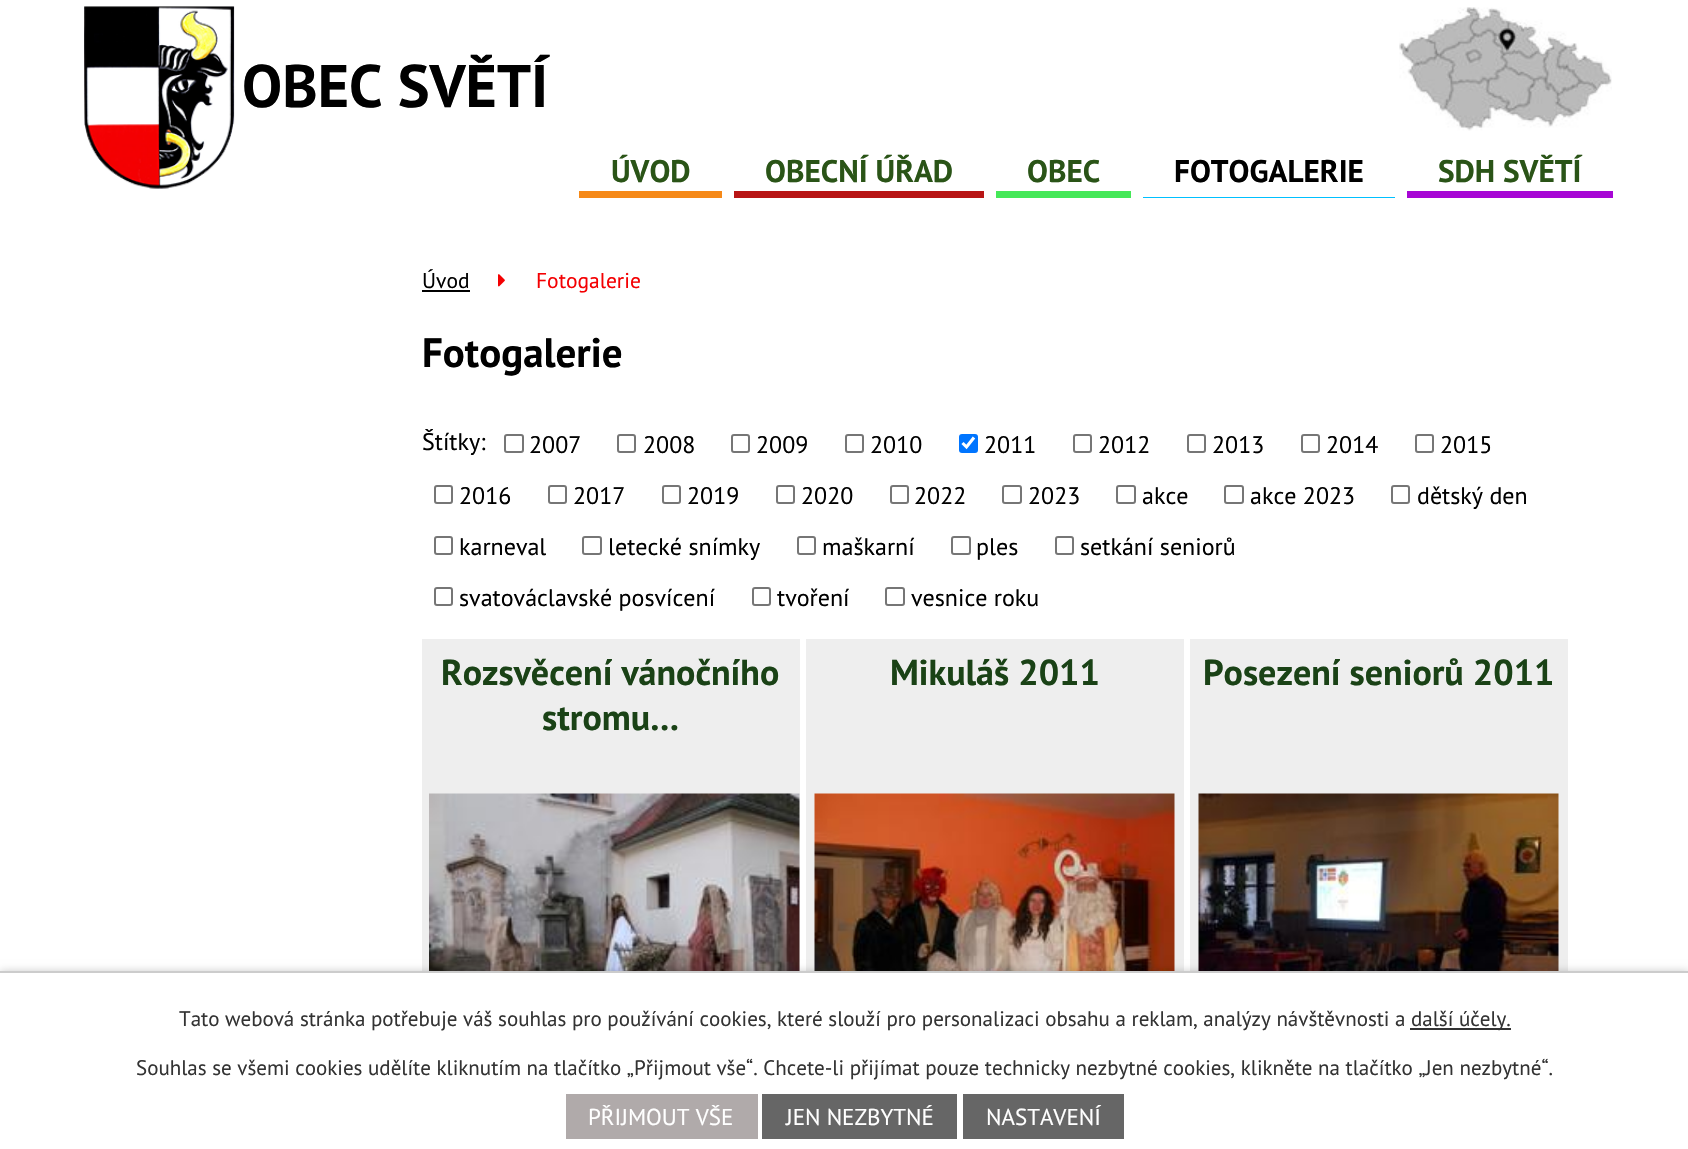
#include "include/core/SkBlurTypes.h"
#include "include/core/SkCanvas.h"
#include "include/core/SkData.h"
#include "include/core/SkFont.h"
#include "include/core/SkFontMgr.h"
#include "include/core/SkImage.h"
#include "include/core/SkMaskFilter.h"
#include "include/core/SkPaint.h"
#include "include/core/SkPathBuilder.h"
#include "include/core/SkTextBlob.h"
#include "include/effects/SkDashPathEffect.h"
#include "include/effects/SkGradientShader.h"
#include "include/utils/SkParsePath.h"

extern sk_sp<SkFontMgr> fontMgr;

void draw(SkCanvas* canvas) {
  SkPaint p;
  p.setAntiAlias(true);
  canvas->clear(SK_ColorWHITE);
  canvas->drawImageRect(SkImages::DeferredFromEncodedData(SkData::MakeFromFileName("images/1.png")), SkRect::MakeLTRB(84, 6, 235, 189), SkSamplingOptions());
  canvas->drawImageRect(SkImages::DeferredFromEncodedData(SkData::MakeFromFileName("images/2.png")), SkRect::MakeLTRB(1399, 7, 1612, 131), SkSamplingOptions());
  p.setColor(SkColorSetRGB(246, 137, 24));
  canvas->drawRect(SkRect::MakeLTRB(579, 191, 722, 198), p);
  p.setColor(SkColorSetRGB(184, 21, 21));
  canvas->drawRect(SkRect::MakeLTRB(734, 191, 984, 198), p);
  p.setColor(SkColorSetRGB(69, 232, 88));
  canvas->drawRect(SkRect::MakeLTRB(996, 191, 1131, 198), p);
  p.setColor(SkColorSetRGB(0, 192, 255));
  canvas->drawRect(SkRect::MakeLTRB(1143, 197, 1395, 198), p);
  p.setColor(SkColorSetRGB(167, 6, 213));
  canvas->drawRect(SkRect::MakeLTRB(1407, 191, 1613, 198), p);
  p.setColor(SK_ColorBLACK);
  canvas->drawRect(SkRect::MakeLTRB(422, 290, 470, 292), p);
  canvas->drawImageRect(SkImages::DeferredFromEncodedData(SkData::MakeFromFileName("images/3.png")), SkRect::MakeLTRB(498, 274, 505, 287), SkSamplingOptions());
  p.setStyle(SkPaint::kStroke_Style);
  p.setStrokeWidth(2);
  p.setColor(SkColorSetRGB(118, 118, 118));
  canvas->drawRoundRect(SkRect::MakeLTRB(505, 435, 523, 452), 2, 2, p);
  canvas->drawRoundRect(SkRect::MakeLTRB(618, 435, 635, 452), 2, 2, p);
  canvas->drawRoundRect(SkRect::MakeLTRB(732, 435, 749, 452), 2, 2, p);
  canvas->drawRoundRect(SkRect::MakeLTRB(846, 435, 863, 452), 2, 2, p);
  p.setStyle(SkPaint::kFill_Style);
  p.setColor(SkColorSetRGB(0, 117, 255));
  canvas->drawRoundRect(SkRect::MakeLTRB(959, 434, 978, 453), 3, 3, p);
  p.setStyle(SkPaint::kStroke_Style);
  p.setStrokeWidth(3.1f);
  p.setColor(SK_ColorWHITE);
  canvas->drawPath(SkPathBuilder().moveTo(962.5f, 443).lineTo(966.5f, 447).lineTo(974, 437.5f).detach(), p);
  p.setStrokeWidth(2);
  p.setColor(SkColorSetRGB(118, 118, 118));
  canvas->drawRoundRect(SkRect::MakeLTRB(1074, 435, 1091, 452), 2, 2, p);
  canvas->drawRoundRect(SkRect::MakeLTRB(1188, 435, 1205, 452), 2, 2, p);
  canvas->drawRoundRect(SkRect::MakeLTRB(1302, 435, 1319, 452), 2, 2, p);
  canvas->drawRoundRect(SkRect::MakeLTRB(1416, 435, 1433, 452), 2, 2, p);
  canvas->drawRoundRect(SkRect::MakeLTRB(435, 486, 452, 503), 2, 2, p);
  canvas->drawRoundRect(SkRect::MakeLTRB(549, 486, 566, 503), 2, 2, p);
  canvas->drawRoundRect(SkRect::MakeLTRB(663, 486, 680, 503), 2, 2, p);
  canvas->drawRoundRect(SkRect::MakeLTRB(777, 486, 794, 503), 2, 2, p);
  canvas->drawRoundRect(SkRect::MakeLTRB(891, 486, 908, 503), 2, 2, p);
  canvas->drawRoundRect(SkRect::MakeLTRB(1003, 486, 1021, 503), 2, 2, p);
  canvas->drawRoundRect(SkRect::MakeLTRB(1117, 486, 1135, 503), 2, 2, p);
  canvas->drawRoundRect(SkRect::MakeLTRB(1225, 486, 1243, 503), 2, 2, p);
  canvas->drawRoundRect(SkRect::MakeLTRB(1392, 486, 1409, 503), 2, 2, p);
  canvas->drawRoundRect(SkRect::MakeLTRB(435, 537, 452, 554), 2, 2, p);
  canvas->drawRoundRect(SkRect::MakeLTRB(583, 537, 601, 554), 2, 2, p);
  canvas->drawRoundRect(SkRect::MakeLTRB(798, 537, 815, 554), 2, 2, p);
  canvas->drawRoundRect(SkRect::MakeLTRB(952, 537, 970, 554), 2, 2, p);
  canvas->drawRoundRect(SkRect::MakeLTRB(1056, 537, 1073, 554), 2, 2, p);
  canvas->drawRoundRect(SkRect::MakeLTRB(435, 588, 452, 605), 2, 2, p);
  canvas->drawRoundRect(SkRect::MakeLTRB(753, 588, 770, 605), 2, 2, p);
  canvas->drawRoundRect(SkRect::MakeLTRB(886, 588, 904, 605), 2, 2, p);
  p.setStyle(SkPaint::kFill_Style);
  p.setColor(SkColorSetRGB(238, 238, 238));
  canvas->drawRect(SkRect::MakeLTRB(422, 639, 800, 971), p);
  canvas->drawImageRect(SkImages::DeferredFromEncodedData(SkData::MakeFromFileName("images/4.png")), SkRect::MakeLTRB(429, 793, 800, 971), SkSamplingOptions());
  canvas->drawRect(SkRect::MakeLTRB(806, 639, 1184, 971), p);
  canvas->drawImageRect(SkImages::DeferredFromEncodedData(SkData::MakeFromFileName("images/5.png")), SkRect::MakeLTRB(814, 793, 1175, 971), SkSamplingOptions());
  canvas->drawRect(SkRect::MakeLTRB(1190, 639, 1568, 971), p);
  canvas->drawImageRect(SkImages::DeferredFromEncodedData(SkData::MakeFromFileName("images/6.png")), SkRect::MakeLTRB(1198, 793, 1559, 971), SkSamplingOptions());
  p.setColor(SkColorSetARGB(51, 0, 0, 0));
  p.setMaskFilter(SkMaskFilter::MakeBlur(kNormal_SkBlurStyle, 4));
  canvas->drawRect(SkRect::MakeLTRB(0, 971, 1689, 1149), p);
  p.setMaskFilter(nullptr);
  p.setColor(SK_ColorWHITE);
  canvas->drawRect(SkRect::MakeLTRB(0, 973, 1688, 1149), p);
  p.setColor(SkColorSetRGB(204, 204, 204));
  canvas->drawRect(SkRect::MakeLTRB(0, 971, 1688, 973), p);
  p.setColor(SkColorSetRGB(51, 51, 51));
  canvas->drawRect(SkRect::MakeLTRB(1410, 1028, 1511, 1030), p);
  p.setColor(SkColorSetRGB(176, 170, 170));
  canvas->drawRect(SkRect::MakeLTRB(566, 1094, 758, 1139), p);
  p.setColor(SkColorSetRGB(102, 102, 102));
  canvas->drawRect(SkRect::MakeLTRB(762, 1094, 957, 1139), p);
  canvas->drawRect(SkRect::MakeLTRB(963, 1094, 1124, 1139), p);
  SkFont font1(fontMgr->matchFamilyStyle("PT Sans", SkFontStyle::Bold()), 60);
  font1.setSubpixel(true);
  p.setColor(SK_ColorBLACK);
  canvas->drawString("OBEC SVĚTÍ", 242, 107, font1, p);
  SkFont font2(fontMgr->matchFamilyStyle("PT Sans", SkFontStyle::Bold()), 31.25f);
  font2.setSubpixel(true);
  p.setColor(SkColorSetRGB(42, 84, 23));
  canvas->drawString("ÚVOD", 611, 182, font2, p);
  canvas->drawString("OBECNÍ ÚŘAD", 765, 182, font2, p);
  canvas->drawString("OBEC", 1027, 182, font2, p);
  p.setColor(SK_ColorBLACK);
  canvas->drawString("FOTOGALERIE", 1174, 182, font2, p);
  p.setColor(SkColorSetRGB(42, 84, 23));
  canvas->drawString("SDH SVĚTÍ", 1438, 182, font2, p);
  SkFont font3(fontMgr->matchFamilyStyle("PT Sans", SkFontStyle::Normal()), 21.5f);
  font3.setSubpixel(true);
  p.setColor(SK_ColorBLACK);
  canvas->drawString("Úvod", 422, 288, font3, p);
  p.setColor(SkColorSetRGB(244, 0, 2));
  canvas->drawString("Fotogalerie", 536, 288, font3, p);
  SkFont font4(fontMgr->matchFamilyStyle("PT Sans", SkFontStyle::Bold()), 41);
  font4.setSubpixel(true);
  p.setColor(SK_ColorBLACK);
  canvas->drawString("Fotogalerie", 422, 367, font4, p);
  SkFont font5(fontMgr->matchFamilyStyle("PT Sans", SkFontStyle::Normal()), 24);
  font5.setSubpixel(true);
  canvas->drawString("Štítky:", 422, 450, font5, p);
  canvas->drawString("2007", 529, 453, font5, p);
  canvas->drawString("2008", 643, 453, font5, p);
  canvas->drawString("2009", 756, 453, font5, p);
  canvas->drawString("2010", 870, 453, font5, p);
  canvas->drawString("2011", 984, 453, font5, p);
  canvas->drawString("2012", 1098, 453, font5, p);
  canvas->drawString("2013", 1212, 453, font5, p);
  canvas->drawString("2014", 1326, 453, font5, p);
  canvas->drawString("2015", 1440, 453, font5, p);
  canvas->drawString("2016", 459, 504, font5, p);
  canvas->drawString("2017", 573, 504, font5, p);
  canvas->drawString("2019", 687, 504, font5, p);
  canvas->drawString("2020", 801, 504, font5, p);
  canvas->drawString("2022", 914, 504, font5, p);
  canvas->drawString("2023", 1028, 504, font5, p);
  canvas->drawString("akce", 1142, 504, font5, p);
  canvas->drawString("akce 2023", 1250, 504, font5, p);
  canvas->drawString("dětský den", 1417, 504, font5, p);
  canvas->drawString("karneval", 459, 555, font5, p);
  canvas->drawString("letecké snímky", 608, 555, font5, p);
  canvas->drawString("maškarní", 822, 555, font5, p);
  canvas->drawString("ples", 976, 555, font5, p);
  canvas->drawString("setkání seniorů", 1080, 555, font5, p);
  canvas->drawString("svatováclavské posvícení", 459, 606, font5, p);
  canvas->drawString("tvoření", 777, 606, font5, p);
  canvas->drawString("vesnice roku", 911, 606, font5, p);
  SkFont font6(fontMgr->matchFamilyStyle("PT Sans", SkFontStyle::Bold()), 36);
  font6.setSubpixel(true);
  p.setColor(SkColorSetRGB(26, 66, 22));
  canvas->drawString("Rozsvěcení vánočního", 441, 685, font6, p);
  canvas->drawString("stromu…", 542, 730, font6, p);
  canvas->drawString("Mikuláš 2011", 890, 685, font6, p);
  canvas->drawString("Posezení seniorů 2011", 1203, 685, font6, p);
  SkFont font7(fontMgr->matchFamilyStyle("PT Sans", SkFontStyle::Normal()), 21);
  font7.setSubpixel(true);
  p.setColor(SkColorSetRGB(51, 51, 51));
  canvas->drawString("Tato webová stránka potřebuje váš souhlas pro používání cookies, které slouží pro personalizaci obsahu a reklam, analýzy návštěvnosti a", 179, 1026, font7, p);
  canvas->drawString("další účely.", 1411, 1026, font7, p);
  canvas->drawString("Souhlas se všemi cookies udělíte kliknutím na tlačítko „Přijmout vše“. Chcete-li přijímat pouze technicky nezbytné cookies, klikněte na tlačítko „Jen nezbytné“.", 136, 1075, font7, p);
  SkFont font8(fontMgr->matchFamilyStyle("PT Sans", SkFontStyle::Normal()), 23);
  font8.setSubpixel(true);
  p.setColor(SK_ColorWHITE);
  canvas->drawString("PŘIJMOUT VŠE", 588, 1125, font8, p);
  canvas->drawString("JEN NEZBYTNÉ", 786, 1125, font8, p);
  canvas->drawString("NASTAVENÍ", 986, 1125, font8, p);
}
